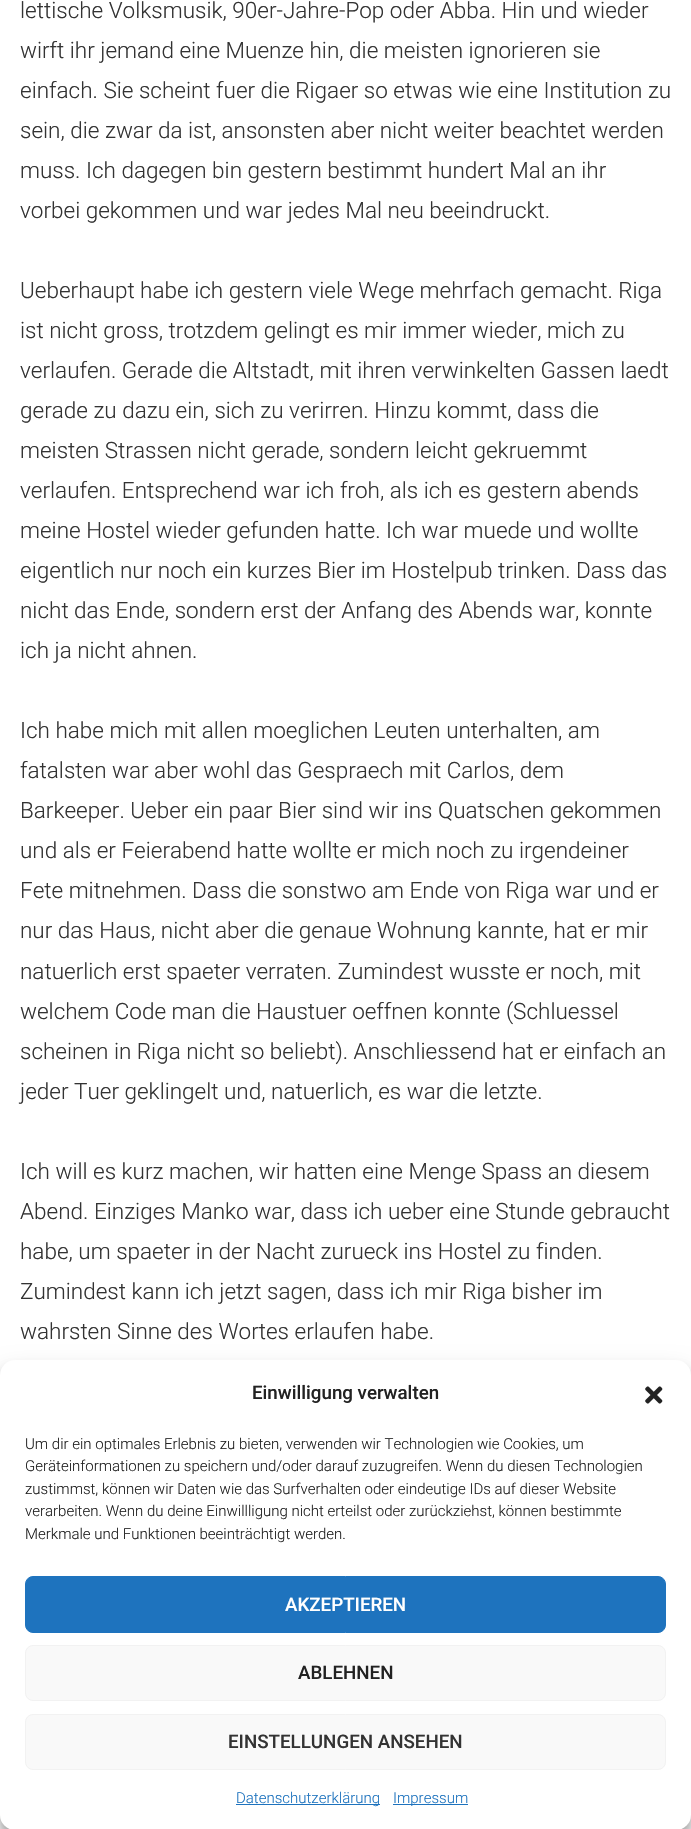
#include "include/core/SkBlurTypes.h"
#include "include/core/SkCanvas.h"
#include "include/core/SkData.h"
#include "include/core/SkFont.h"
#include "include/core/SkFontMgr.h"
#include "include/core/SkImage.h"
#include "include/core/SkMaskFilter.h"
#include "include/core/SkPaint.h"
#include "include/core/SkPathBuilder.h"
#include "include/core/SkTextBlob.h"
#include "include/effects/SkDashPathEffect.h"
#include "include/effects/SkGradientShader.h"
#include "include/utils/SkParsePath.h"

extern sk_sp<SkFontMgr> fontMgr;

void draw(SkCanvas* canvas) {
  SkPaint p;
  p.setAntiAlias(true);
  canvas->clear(SK_ColorWHITE);
  p.setColor(SkColorSetARGB(59, 0, 0, 0));
  p.setMaskFilter(SkMaskFilter::MakeBlur(kNormal_SkBlurStyle, 4));
  canvas->drawRoundRect(SkRect::MakeLTRB(0, 1368, 691, 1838), 15, 15, p);
  p.setMaskFilter(nullptr);
  p.setColor(SkColorSetARGB(48, 0, 0, 0));
  p.setMaskFilter(SkMaskFilter::MakeBlur(kNormal_SkBlurStyle, 12.5f));
  canvas->drawRoundRect(SkRect::MakeLTRB(0, 1373, 691, 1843), 15, 15, p);
  p.setMaskFilter(nullptr);
  p.setColor(SK_ColorWHITE);
  canvas->drawRoundRect(SkRect::MakeLTRB(0, 1360, 691, 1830), 15, 15, p);
  canvas->drawImageRect(SkImages::DeferredFromEncodedData(SkData::MakeFromFileName("images/1.png")), SkRect::MakeLTRB(645, 1386, 663, 1404), SkSamplingOptions());
  p.setColor(SkColorSetRGB(30, 115, 190));
  canvas->drawRoundRect(SkRect::MakeLTRB(25.5f, 1576.5f, 665.5f, 1632.5f), 7.5f, 7.5f, p);
  p.setStyle(SkPaint::kStroke_Style);
  p.setStrokeWidth(1);
  canvas->drawRoundRect(SkRect::MakeLTRB(25.5f, 1576.5f, 665.5f, 1632.5f), 7.5f, 7.5f, p);
  p.setStyle(SkPaint::kFill_Style);
  p.setColor(SkColorSetRGB(249, 249, 249));
  canvas->drawRoundRect(SkRect::MakeLTRB(25.5f, 1645.5f, 665.5f, 1700.5f), 7.5f, 7.5f, p);
  p.setStyle(SkPaint::kStroke_Style);
  p.setColor(SkColorSetRGB(242, 242, 242));
  canvas->drawRoundRect(SkRect::MakeLTRB(25.5f, 1645.5f, 665.5f, 1700.5f), 7.5f, 7.5f, p);
  p.setStyle(SkPaint::kFill_Style);
  p.setColor(SkColorSetRGB(249, 249, 249));
  canvas->drawRoundRect(SkRect::MakeLTRB(25.5f, 1714.5f, 665.5f, 1769.5f), 7.5f, 7.5f, p);
  p.setStyle(SkPaint::kStroke_Style);
  p.setColor(SkColorSetRGB(242, 242, 242));
  canvas->drawRoundRect(SkRect::MakeLTRB(25.5f, 1714.5f, 665.5f, 1769.5f), 7.5f, 7.5f, p);
  p.setStyle(SkPaint::kFill_Style);
  p.setColor(SkColorSetRGB(30, 115, 190));
  canvas->drawRect(SkRect::MakeLTRB(236, 1804, 380, 1805), p);
  canvas->drawRect(SkRect::MakeLTRB(393, 1804, 468, 1805), p);
  SkFont font1(fontMgr->matchFamilyStyle("Roboto", SkFontStyle(300, SkFontStyle::kNormal_Width, SkFontStyle::kUpright_Slant)), 22.5f);
  font1.setSubpixel(true);
  p.setColor(SkColorSetRGB(51, 51, 51));
  canvas->drawString("lettische Volksmusik, 90er-Jahre-Pop oder Abba. Hin und wieder", 20, 18, font1, p);
  canvas->drawString("wirft ihr jemand eine Muenze hin, die meisten ignorieren sie", 20, 58, font1, p);
  canvas->drawString("einfach. Sie scheint fuer die Rigaer so etwas wie eine Institution zu", 20, 98, font1, p);
  canvas->drawString("sein, die zwar da ist, ansonsten aber nicht weiter beachtet werden", 20, 138, font1, p);
  canvas->drawString("muss. Ich dagegen bin gestern bestimmt hundert Mal an ihr", 20, 178, font1, p);
  canvas->drawString("vorbei gekommen und war jedes Mal neu beeindruckt.", 20, 218, font1, p);
  canvas->drawString("Ueberhaupt habe ich gestern viele Wege mehrfach gemacht. Riga", 20, 298, font1, p);
  canvas->drawString("ist nicht gross, trotzdem gelingt es mir immer wieder, mich zu", 20, 338, font1, p);
  canvas->drawString("verlaufen. Gerade die Altstadt, mit ihren verwinkelten Gassen laedt", 20, 378, font1, p);
  canvas->drawString("gerade zu dazu ein, sich zu verirren. Hinzu kommt, dass die", 20, 418, font1, p);
  canvas->drawString("meisten Strassen nicht gerade, sondern leicht gekruemmt", 20, 458, font1, p);
  canvas->drawString("verlaufen. Entsprechend war ich froh, als ich es gestern abends", 20, 498, font1, p);
  canvas->drawString("meine Hostel wieder gefunden hatte. Ich war muede und wollte", 20, 538, font1, p);
  canvas->drawString("eigentlich nur noch ein kurzes Bier im Hostelpub trinken. Dass das", 20, 578, font1, p);
  canvas->drawString("nicht das Ende, sondern erst der Anfang des Abends war, konnte", 20, 618, font1, p);
  canvas->drawString("ich ja nicht ahnen.", 20, 658, font1, p);
  canvas->drawString("Ich habe mich mit allen moeglichen Leuten unterhalten, am", 20, 738, font1, p);
  canvas->drawString("fatalsten war aber wohl das Gespraech mit Carlos, dem", 20, 778, font1, p);
  canvas->drawString("Barkeeper. Ueber ein paar Bier sind wir ins Quatschen gekommen", 20, 818, font1, p);
  canvas->drawString("und als er Feierabend hatte wollte er mich noch zu irgendeiner", 20, 858, font1, p);
  canvas->drawString("Fete mitnehmen. Dass die sonstwo am Ende von Riga war und er", 20, 898, font1, p);
  canvas->drawString("nur das Haus, nicht aber die genaue Wohnung kannte, hat er mir", 20, 938, font1, p);
  canvas->drawString("natuerlich erst spaeter verraten. Zumindest wusste er noch, mit", 20, 979, font1, p);
  canvas->drawString("welchem Code man die Haustuer oeffnen konnte (Schluessel", 20, 1019, font1, p);
  canvas->drawString("scheinen in Riga nicht so beliebt). Anschliessend hat er einfach an", 20, 1059, font1, p);
  canvas->drawString("jeder Tuer geklingelt und, natuerlich, es war die letzte.", 20, 1099, font1, p);
  canvas->drawString("Ich will es kurz machen, wir hatten eine Menge Spass an diesem", 20, 1179, font1, p);
  canvas->drawString("Abend. Einziges Manko war, dass ich ueber eine Stunde gebraucht", 20, 1219, font1, p);
  canvas->drawString("habe, um spaeter in der Nacht zurueck ins Hostel zu finden.", 20, 1259, font1, p);
  canvas->drawString("Zumindest kann ich jetzt sagen, dass ich mir Riga bisher im", 20, 1299, font1, p);
  canvas->drawString("wahrsten Sinne des Wortes erlaufen habe.", 20, 1339, font1, p);
  SkFont font2(fontMgr->matchFamilyStyle("Roboto", SkFontStyle(500, SkFontStyle::kNormal_Width, SkFontStyle::kUpright_Slant)), 18.75f);
  font2.setSubpixel(true);
  p.setColor(SkColorSetRGB(34, 34, 34));
  canvas->drawString("Einwilligung verwalten", 252, 1399, font2, p);
  SkFont font3(fontMgr->matchFamilyStyle("Roboto", SkFontStyle(300, SkFontStyle::kNormal_Width, SkFontStyle::kUpright_Slant)), 15);
  font3.setSubpixel(true);
  canvas->drawString("Um dir ein optimales Erlebnis zu bieten, verwenden wir Technologien wie Cookies, um", 25, 1449, font3, p);
  canvas->drawString("Geräteinformationen zu speichern und/oder darauf zuzugreifen. Wenn du diesen Technologien", 25, 1471, font3, p);
  canvas->drawString("zustimmst, können wir Daten wie das Surfverhalten oder eindeutige IDs auf dieser Website", 25, 1494, font3, p);
  canvas->drawString("verarbeiten. Wenn du deine Einwillligung nicht erteilst oder zurückziehst, können bestimmte", 25, 1516, font3, p);
  canvas->drawString("Merkmale und Funktionen beeinträchtigt werden.", 25, 1539, font3, p);
  p.setColor(SK_ColorWHITE);
  canvas->drawString("AKZEPTIEREN", 285, 1611, font2, p);
  p.setColor(SkColorSetRGB(34, 34, 34));
  canvas->drawString("ABLEHNEN", 298, 1679, font2, p);
  p.setColor(SkColorSetRGB(51, 51, 51));
  canvas->drawString("EINSTELLUNGEN ANSEHEN", 228, 1748, font2, p);
  p.setColor(SkColorSetRGB(30, 115, 190));
  canvas->drawString("Datenschutzerklärung", 236, 1803, font3, p);
  canvas->drawString("Impressum", 393, 1803, font3, p);
}
